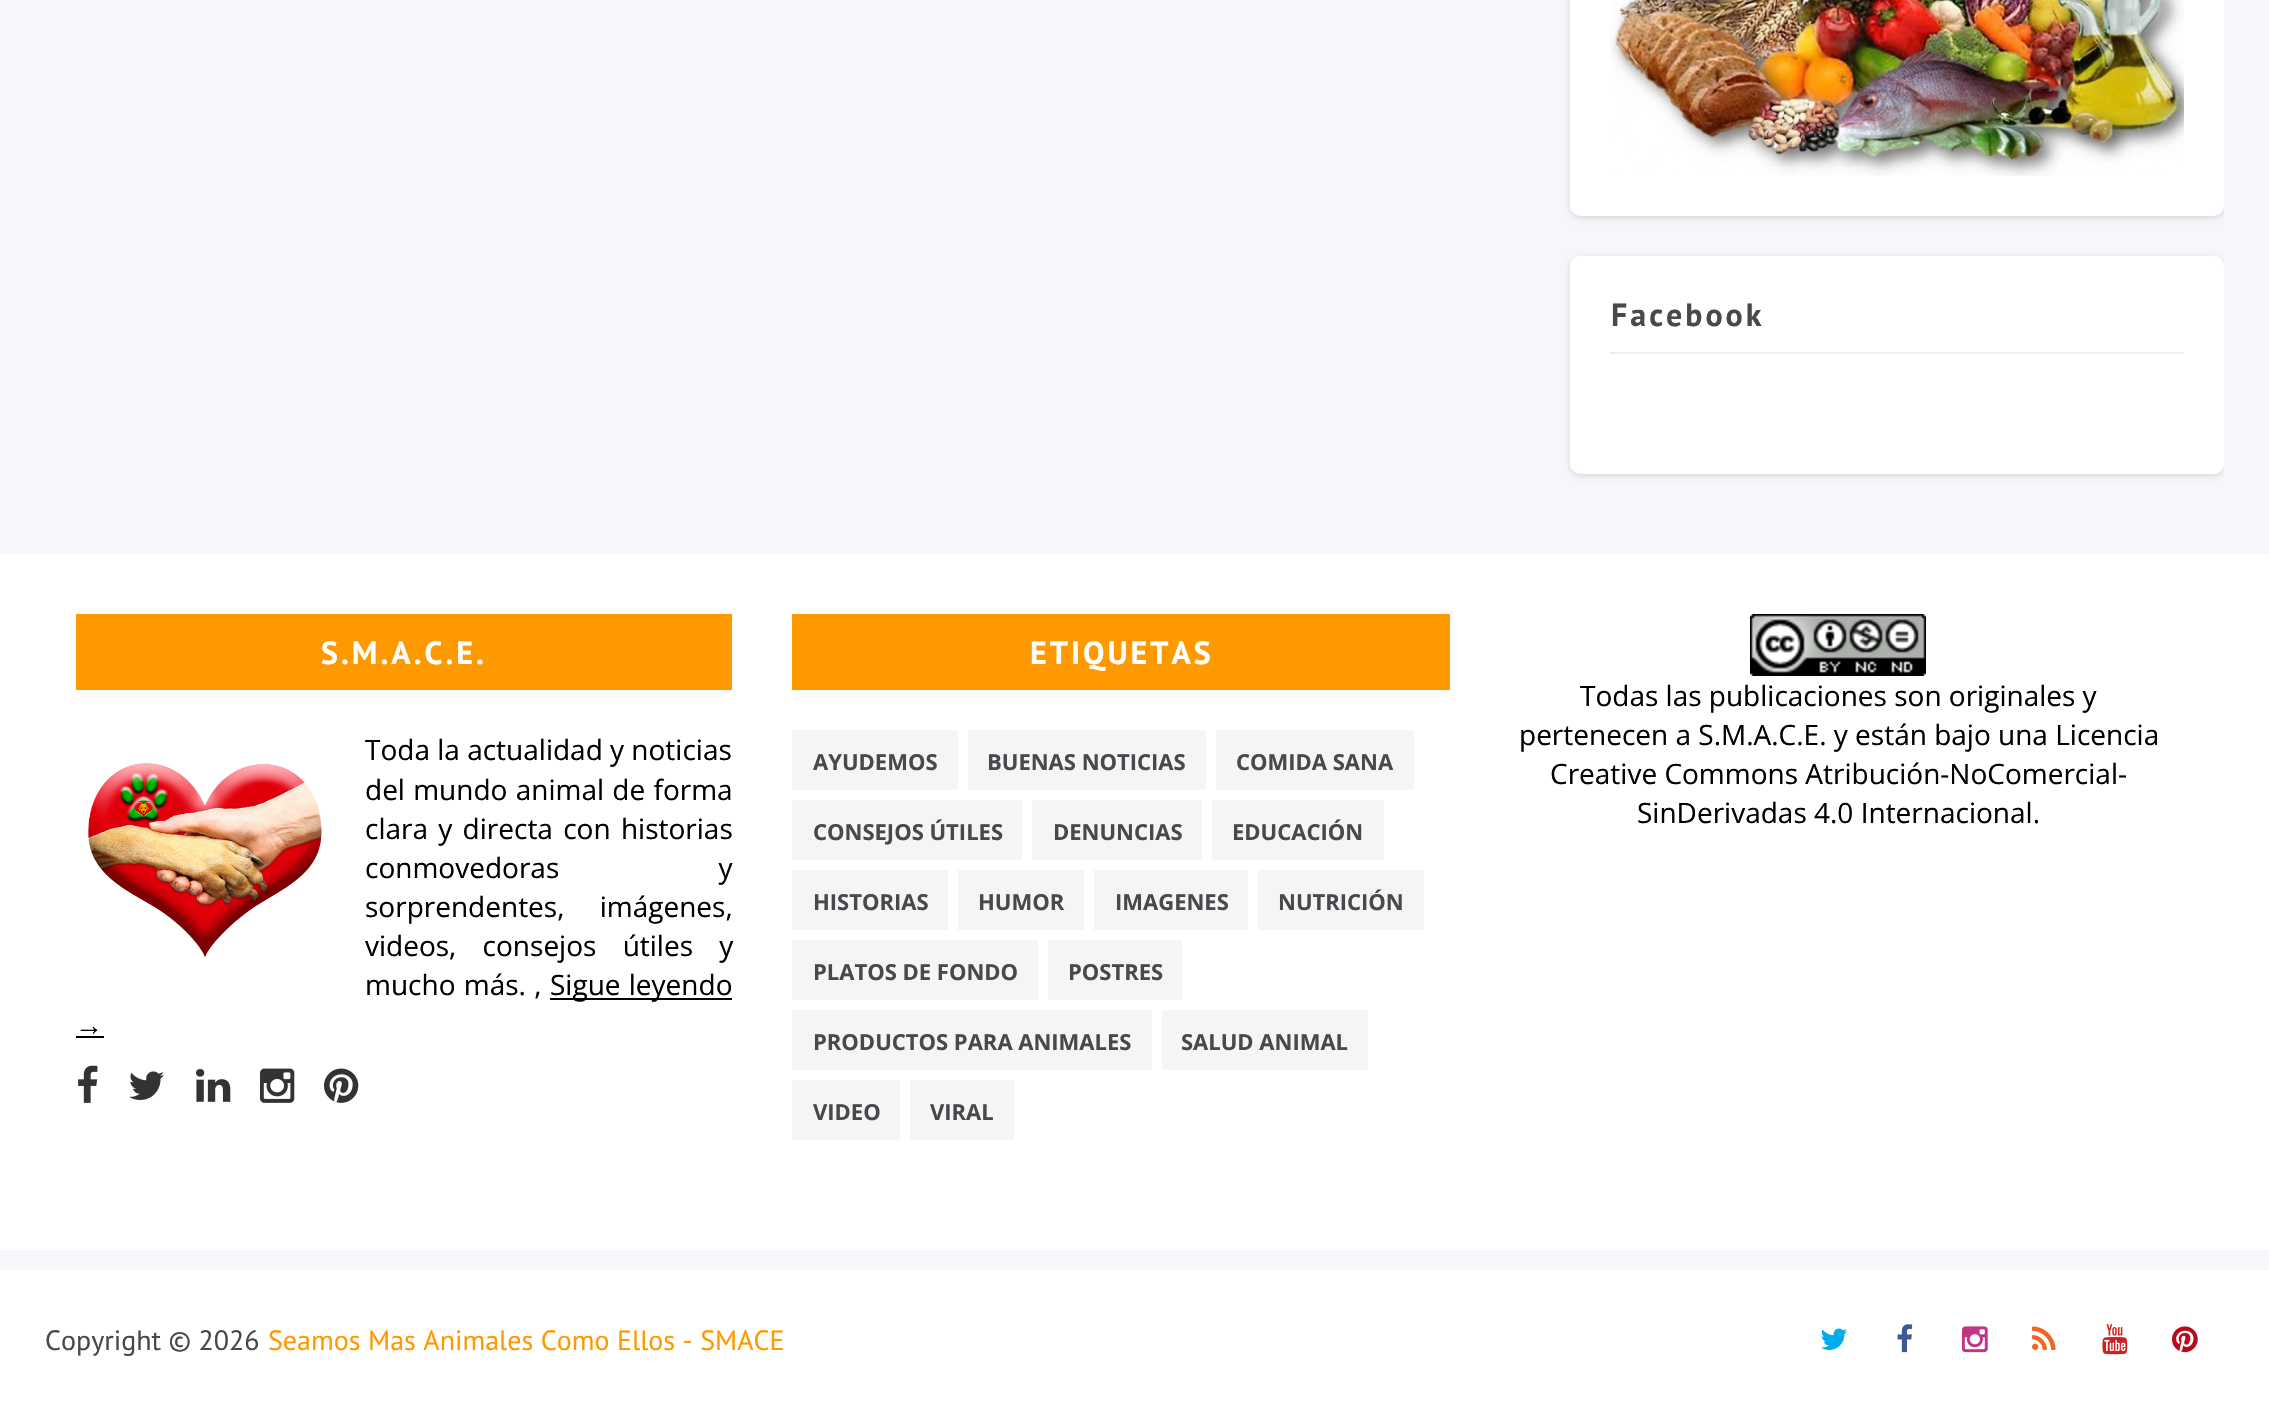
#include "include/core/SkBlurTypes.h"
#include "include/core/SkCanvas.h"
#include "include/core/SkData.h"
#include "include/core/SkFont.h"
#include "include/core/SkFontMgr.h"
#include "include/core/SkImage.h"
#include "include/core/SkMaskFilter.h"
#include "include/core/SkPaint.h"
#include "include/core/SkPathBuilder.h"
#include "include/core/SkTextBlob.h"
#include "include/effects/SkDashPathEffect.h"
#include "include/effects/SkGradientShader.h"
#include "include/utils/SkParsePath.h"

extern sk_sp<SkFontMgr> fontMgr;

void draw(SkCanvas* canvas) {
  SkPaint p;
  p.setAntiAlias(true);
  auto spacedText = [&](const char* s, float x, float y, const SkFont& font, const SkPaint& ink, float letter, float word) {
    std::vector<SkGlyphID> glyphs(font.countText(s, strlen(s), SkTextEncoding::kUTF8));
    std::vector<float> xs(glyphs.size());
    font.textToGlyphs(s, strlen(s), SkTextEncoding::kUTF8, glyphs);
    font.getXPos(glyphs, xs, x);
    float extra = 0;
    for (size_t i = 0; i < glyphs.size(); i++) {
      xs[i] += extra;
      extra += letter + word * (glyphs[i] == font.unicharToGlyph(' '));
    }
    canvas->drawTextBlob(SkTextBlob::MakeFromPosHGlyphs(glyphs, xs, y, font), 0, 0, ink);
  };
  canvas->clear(SkColorSetRGB(246, 247, 251));
  canvas->save();
  canvas->clipRect(SkRect::MakeLTRB(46, 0, 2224, 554));
  p.setColor(SkColorSetARGB(33, 0, 0, 0));
  p.setMaskFilter(SkMaskFilter::MakeBlur(kNormal_SkBlurStyle, 3));
  canvas->drawRoundRect(SkRect::MakeLTRB(1570, -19, 2224, 218), 10, 10, p);
  p.setMaskFilter(nullptr);
  canvas->restore();
  p.setColor(SK_ColorWHITE);
  canvas->drawRoundRect(SkRect::MakeLTRB(1570, -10, 2224, 216), 10, 10, p);
  canvas->drawImageRect(SkImages::DeferredFromEncodedData(SkData::MakeFromFileName("images/1.png")), SkRect::MakeLTRB(1610, 0, 2184, 176), SkSamplingOptions());
  canvas->save();
  canvas->clipRect(SkRect::MakeLTRB(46, 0, 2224, 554));
  p.setColor(SkColorSetARGB(33, 0, 0, 0));
  p.setMaskFilter(SkMaskFilter::MakeBlur(kNormal_SkBlurStyle, 3));
  canvas->drawRoundRect(SkRect::MakeLTRB(1570, 258, 2224, 476), 10, 10, p);
  p.setMaskFilter(nullptr);
  canvas->restore();
  p.setColor(SK_ColorWHITE);
  canvas->drawRoundRect(SkRect::MakeLTRB(1570, 256, 2224, 474), 10, 10, p);
  p.setColor(SkColorSetRGB(239, 239, 239));
  canvas->drawRect(SkRect::MakeLTRB(1610, 352, 2184, 354), p);
  p.setColor(SK_ColorWHITE);
  canvas->drawRect(SkRect::MakeLTRB(0, 554, 2269, 1250), p);
  p.setColor(SkColorSetRGB(255, 153, 0));
  canvas->drawRect(SkRect::MakeLTRB(76, 614, 732, 690), p);
  p.setColor(SK_ColorBLACK);
  canvas->drawRect(SkRect::MakeLTRB(550, 998, 732, 1000), p);
  canvas->drawRect(SkRect::MakeLTRB(76, 1036, 104, 1038), p);
  canvas->drawImageRect(SkImages::DeferredFromEncodedData(SkData::MakeFromFileName("images/2.png")), SkRect::MakeLTRB(88, 763, 322, 958), SkSamplingOptions());
  canvas->drawImageRect(SkImages::DeferredFromEncodedData(SkData::MakeFromFileName("images/3.png")), SkRect::MakeLTRB(78, 1065, 98, 1103), SkSamplingOptions());
  canvas->drawImageRect(SkImages::DeferredFromEncodedData(SkData::MakeFromFileName("images/4.png")), SkRect::MakeLTRB(129, 1071, 164, 1100), SkSamplingOptions());
  canvas->drawImageRect(SkImages::DeferredFromEncodedData(SkData::MakeFromFileName("images/5.png")), SkRect::MakeLTRB(196, 1069, 231, 1102), SkSamplingOptions());
  canvas->drawImageRect(SkImages::DeferredFromEncodedData(SkData::MakeFromFileName("images/6.png")), SkRect::MakeLTRB(260, 1068, 295, 1103), SkSamplingOptions());
  canvas->drawImageRect(SkImages::DeferredFromEncodedData(SkData::MakeFromFileName("images/7.png")), SkRect::MakeLTRB(324, 1068, 359, 1103), SkSamplingOptions());
  p.setColor(SkColorSetRGB(255, 153, 0));
  canvas->drawRect(SkRect::MakeLTRB(792, 614, 1450, 690), p);
  p.setColor(SkColorSetRGB(245, 245, 245));
  canvas->drawRect(SkRect::MakeLTRB(792, 730, 958, 790), p);
  canvas->drawRect(SkRect::MakeLTRB(968, 730, 1206, 790), p);
  canvas->drawRect(SkRect::MakeLTRB(1216, 730, 1414, 790), p);
  canvas->drawRect(SkRect::MakeLTRB(792, 800, 1022, 860), p);
  canvas->drawRect(SkRect::MakeLTRB(1032, 800, 1202, 860), p);
  canvas->drawRect(SkRect::MakeLTRB(1212, 800, 1384, 860), p);
  canvas->drawRect(SkRect::MakeLTRB(792, 870, 948, 930), p);
  canvas->drawRect(SkRect::MakeLTRB(958, 870, 1084, 930), p);
  canvas->drawRect(SkRect::MakeLTRB(1094, 870, 1248, 930), p);
  canvas->drawRect(SkRect::MakeLTRB(1258, 870, 1424, 930), p);
  canvas->drawRect(SkRect::MakeLTRB(792, 940, 1038, 1000), p);
  canvas->drawRect(SkRect::MakeLTRB(1048, 940, 1182, 1000), p);
  canvas->drawRect(SkRect::MakeLTRB(792, 1010, 1152, 1070), p);
  canvas->drawRect(SkRect::MakeLTRB(1162, 1010, 1368, 1070), p);
  canvas->drawRect(SkRect::MakeLTRB(792, 1080, 900, 1140), p);
  canvas->drawRect(SkRect::MakeLTRB(910, 1080, 1014, 1140), p);
  canvas->drawImageRect(SkImages::DeferredFromEncodedData(SkData::MakeFromFileName("images/8.png")), SkRect::MakeLTRB(1750, 614, 1926, 676), SkSamplingOptions());
  p.setColor(SK_ColorWHITE);
  canvas->drawRect(SkRect::MakeLTRB(0, 1270, 2269, 1409), p);
  canvas->drawImageRect(SkImages::DeferredFromEncodedData(SkData::MakeFromFileName("images/9.png")), SkRect::MakeLTRB(1821, 1328, 1847, 1350), SkSamplingOptions());
  canvas->drawImageRect(SkImages::DeferredFromEncodedData(SkData::MakeFromFileName("images/10.png")), SkRect::MakeLTRB(1897, 1324, 1913, 1353), SkSamplingOptions());
  canvas->drawImageRect(SkImages::DeferredFromEncodedData(SkData::MakeFromFileName("images/11.png")), SkRect::MakeLTRB(1962, 1326, 1988, 1353), SkSamplingOptions());
  canvas->drawImageRect(SkImages::DeferredFromEncodedData(SkData::MakeFromFileName("images/12.png")), SkRect::MakeLTRB(2032, 1326, 2056, 1350), SkSamplingOptions());
  canvas->drawImageRect(SkImages::DeferredFromEncodedData(SkData::MakeFromFileName("images/13.png")), SkRect::MakeLTRB(2102, 1324, 2128, 1355), SkSamplingOptions());
  canvas->drawImageRect(SkImages::DeferredFromEncodedData(SkData::MakeFromFileName("images/14.png")), SkRect::MakeLTRB(2172, 1326, 2198, 1353), SkSamplingOptions());
  SkFont font1(fontMgr->matchFamilyStyle("PT Sans", SkFontStyle::Bold()), 32);
  font1.setSubpixel(true);
  p.setColor(SkColorSetRGB(72, 73, 77));
  spacedText("Facebook", 1611, 326, font1, p, 3, 0);
  p.setColor(SK_ColorWHITE);
  spacedText("S.M.A.C.E.", 321, 664, font1, p, 3, 0);
  SkFont font2(fontMgr->matchFamilyStyle("Open Sans", SkFontStyle::Normal()), 28);
  font2.setSubpixel(true);
  p.setColor(SK_ColorBLACK);
  canvas->drawString("Toda la actualidad y noticias", 365, 760, font2, p);
  spacedText("del mundo animal de forma", 365, 800, font2, p, 0, 1);
  spacedText("clara y directa con historias", 365, 839, font2, p, 0, 3);
  spacedText("conmovedoras y", 365, 878, font2, p, 0, 152);
  spacedText("sorprendentes, imágenes,", 365, 917, font2, p, 0, 28);
  spacedText("videos, consejos útiles y", 365, 956, font2, p, 0, 19);
  spacedText("mucho más. ,", 365, 995, font2, p, 0, 1);
  spacedText("Sigue leyendo", 550, 995, font2, p, 0, 1);
  SkFont font3(fontMgr->matchFamilyStyle("Liberation Sans", SkFontStyle::Normal()), 28);
  font3.setSubpixel(true);
  canvas->drawString("→", 75, 1035, font3, p);
  p.setColor(SK_ColorWHITE);
  spacedText("ETIQUETAS", 1030, 664, font1, p, 3, 0);
  SkFont font4(fontMgr->matchFamilyStyle("Open Sans", SkFontStyle::Bold()), 22);
  font4.setSubpixel(true);
  p.setColor(SkColorSetRGB(72, 73, 77));
  canvas->drawString("AYUDEMOS", 813, 770, font4, p);
  canvas->drawString("BUENAS NOTICIAS", 987, 770, font4, p);
  canvas->drawString("COMIDA SANA", 1236, 770, font4, p);
  canvas->drawString("CONSEJOS ÚTILES", 813, 840, font4, p);
  canvas->drawString("DENUNCIAS", 1053, 840, font4, p);
  canvas->drawString("EDUCACIÓN", 1232, 840, font4, p);
  canvas->drawString("HISTORIAS", 813, 910, font4, p);
  canvas->drawString("HUMOR", 978, 910, font4, p);
  canvas->drawString("IMAGENES", 1115, 910, font4, p);
  canvas->drawString("NUTRICIÓN", 1278, 910, font4, p);
  canvas->drawString("PLATOS DE FONDO", 813, 980, font4, p);
  canvas->drawString("POSTRES", 1068, 980, font4, p);
  canvas->drawString("PRODUCTOS PARA ANIMALES", 813, 1050, font4, p);
  canvas->drawString("SALUD ANIMAL", 1181, 1050, font4, p);
  canvas->drawString("VIDEO", 813, 1120, font4, p);
  canvas->drawString("VIRAL", 930, 1120, font4, p);
  p.setColor(SK_ColorBLACK);
  canvas->drawString("Todas las publicaciones son originales y", 1580, 706, font2, p);
  canvas->drawString("pertenecen a S.M.A.C.E. y están bajo una Licencia", 1519, 745, font2, p);
  canvas->drawString("Creative Commons Atribución-NoComercial-", 1550, 784, font2, p);
  canvas->drawString("SinDerivadas 4.0 Internacional.", 1637, 823, font2, p);
  SkFont font5(fontMgr->matchFamilyStyle("PT Sans", SkFontStyle::Normal()), 28);
  font5.setSubpixel(true);
  p.setColor(SkColorSetRGB(72, 73, 77));
  canvas->drawString("Copyright © 2026", 45, 1350, font5, p);
  p.setColor(SkColorSetRGB(255, 153, 0));
  canvas->drawString("Seamos Mas Animales Como Ellos - SMACE", 268, 1350, font5, p);
}
